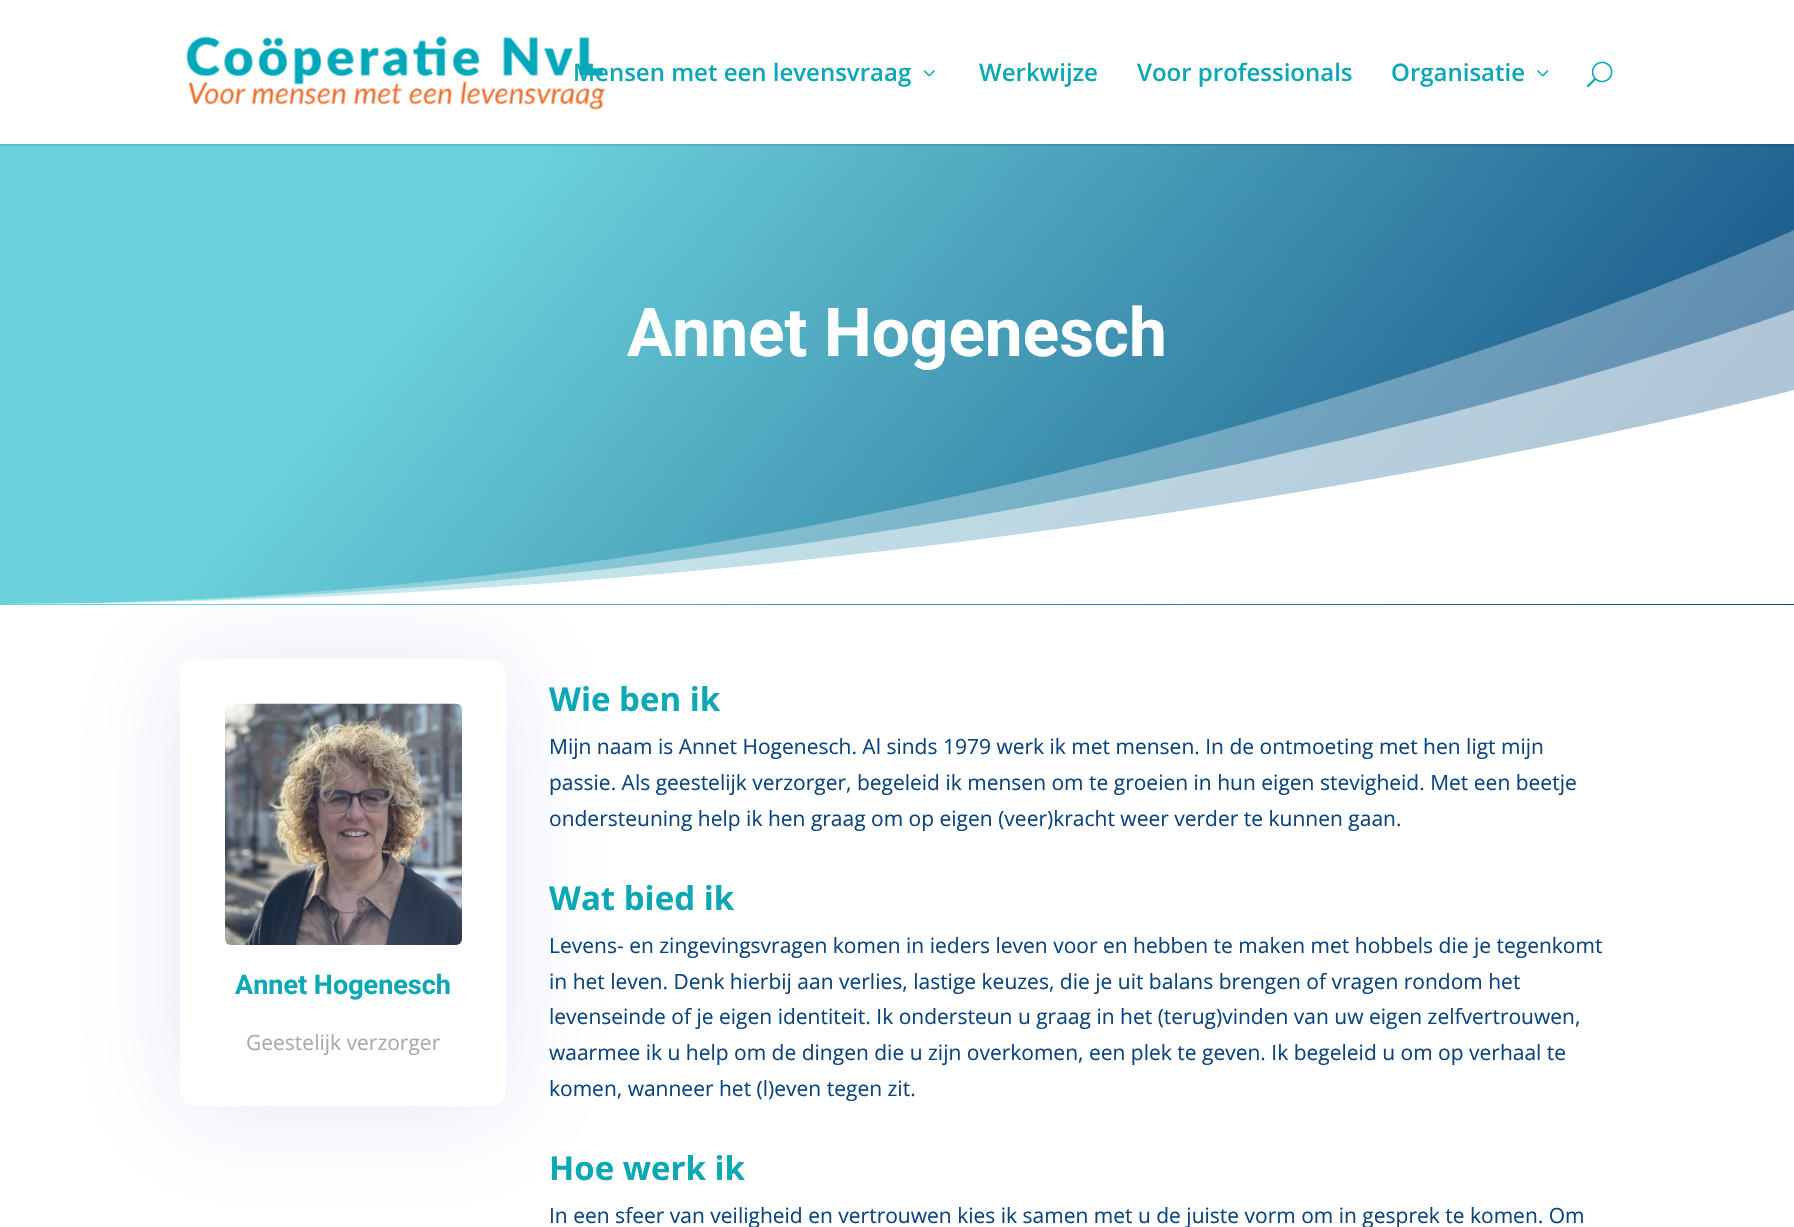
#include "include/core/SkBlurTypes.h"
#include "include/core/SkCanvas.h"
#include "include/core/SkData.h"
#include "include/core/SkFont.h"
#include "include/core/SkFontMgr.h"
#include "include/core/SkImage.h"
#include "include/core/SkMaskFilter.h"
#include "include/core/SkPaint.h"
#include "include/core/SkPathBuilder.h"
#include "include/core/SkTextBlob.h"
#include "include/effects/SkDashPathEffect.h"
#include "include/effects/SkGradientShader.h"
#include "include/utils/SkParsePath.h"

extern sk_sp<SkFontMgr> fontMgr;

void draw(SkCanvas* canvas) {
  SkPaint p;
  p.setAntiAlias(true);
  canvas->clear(SK_ColorWHITE);
  canvas->drawImageRect(SkImages::DeferredFromEncodedData(SkData::MakeFromFileName("images/1.png")), SkRect::MakeLTRB(186, 36, 605, 110), SkSamplingOptions());
  canvas->drawImageRect(SkImages::DeferredFromEncodedData(SkData::MakeFromFileName("images/2.png")), SkRect::MakeLTRB(923, 70, 935, 77), SkSamplingOptions());
  canvas->drawImageRect(SkImages::DeferredFromEncodedData(SkData::MakeFromFileName("images/3.png")), SkRect::MakeLTRB(1537, 70, 1549, 77), SkSamplingOptions());
  canvas->drawImageRect(SkImages::DeferredFromEncodedData(SkData::MakeFromFileName("images/4.png")), SkRect::MakeLTRB(1586, 61, 1613, 88), SkSamplingOptions());
  {
    const SkColor colors[] = {SkColorSetRGB(107, 210, 219), SkColorSetRGB(12, 69, 125)};
    const float stops[] = {0.25f, 1};
    const SkPoint ends[] = {{254, -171}, {1540, 908}};
    p.setShader(SkGradientShader::MakeLinear(ends, colors, stops, 2, SkTileMode::kClamp));
    p.setAlpha(255);
  }
  canvas->drawRect(SkRect::MakeLTRB(0, 146, 1794, 605), p);
  {
    const SkColor colors[] = {SkColorSetRGB(96, 189, 197), SkColorSetRGB(11, 62, 113)};
    const float stops[] = {0.25f, 1};
    const SkPoint ends[] = {{254, -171}, {1540, 908}};
    p.setShader(SkGradientShader::MakeLinear(ends, colors, stops, 2, SkTileMode::kClamp));
    p.setAlpha(255);
  }
  canvas->drawRect(SkRect::MakeLTRB(0, 144, 1794, 146), p);
  p.setShader(nullptr);
  p.setColor(SkColorSetARGB(77, 255, 255, 255));
  canvas->drawPath(SkPathBuilder().moveTo(1794, 604).lineTo(0, 604).cubicTo(991, 604, 1794, 230, 1794, 230).close().detach(), p);
  p.setColor(SkColorSetARGB(128, 255, 255, 255));
  canvas->drawPath(SkPathBuilder().moveTo(1794, 604).lineTo(0, 604).cubicTo(991, 604, 1794, 310, 1794, 310).close().detach(), p);
  p.setColor(SK_ColorWHITE);
  canvas->drawPath(SkPathBuilder().moveTo(1794, 604).lineTo(0, 604).cubicTo(991, 604, 1794, 390, 1794, 390).close().detach(), p);
  canvas->save();
  canvas->clipPath(SkPathBuilder().moveTo(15, 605).lineTo(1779, 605).cubicTo(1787.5f, 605, 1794, 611.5f, 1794, 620).lineTo(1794, 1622).cubicTo(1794, 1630.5f, 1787.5f, 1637, 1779, 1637).lineTo(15, 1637).cubicTo(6.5f, 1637, 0, 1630.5f, 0, 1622).lineTo(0, 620).cubicTo(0, 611.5f, 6.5f, 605, 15, 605).close().detach(), true);
  p.setColor(SkColorSetARGB(46, 110, 130, 208));
  p.setMaskFilter(SkMaskFilter::MakeBlur(kNormal_SkBlurStyle, 52.5f));
  canvas->drawRoundRect(SkRect::MakeLTRB(180, 662, 506, 1109), 15, 15, p);
  p.setMaskFilter(nullptr);
  canvas->restore();
  p.setColor(SK_ColorWHITE);
  canvas->drawRoundRect(SkRect::MakeLTRB(180, 659, 506, 1106), 15, 15, p);
  canvas->drawImageRect(SkImages::DeferredFromEncodedData(SkData::MakeFromFileName("images/5.png")), SkRect::MakeLTRB(225, 703, 462, 945), SkSamplingOptions());
  SkFont font1(fontMgr->matchFamilyStyle("Open Sans", SkFontStyle(600, SkFontStyle::kNormal_Width, SkFontStyle::kUpright_Slant)), 24);
  font1.setSubpixel(true);
  p.setColor(SkColorSetRGB(14, 167, 181));
  canvas->drawString("Mensen met een levensvraag", 573, 81, font1, p);
  canvas->drawString("Werkwijze", 979, 81, font1, p);
  canvas->drawString("Voor professionals", 1137, 81, font1, p);
  canvas->drawString("Organisatie", 1391, 81, font1, p);
  SkFont font2(fontMgr->matchFamilyStyle("Roboto", SkFontStyle::Bold()), 67.5f);
  font2.setSubpixel(true);
  p.setColor(SK_ColorWHITE);
  canvas->drawString("Annet Hogenesch", 627, 356, font2, p);
  SkFont font3(fontMgr->matchFamilyStyle("Roboto", SkFontStyle::Bold()), 27);
  font3.setSubpixel(true);
  p.setColor(SkColorSetRGB(14, 167, 181));
  canvas->drawString("Annet Hogenesch", 235, 994, font3, p);
  SkFont font4(fontMgr->matchFamilyStyle("Open Sans", SkFontStyle::Normal()), 21);
  font4.setSubpixel(true);
  p.setColor(SkColorSetRGB(170, 170, 170));
  canvas->drawString("Geestelijk verzorger", 246, 1050, font4, p);
  SkFont font5(fontMgr->matchFamilyStyle("Open Sans", SkFontStyle::Bold()), 33);
  font5.setSubpixel(true);
  p.setColor(SkColorSetRGB(14, 167, 181));
  canvas->drawString("Wie ben ik", 549, 711, font5, p);
  p.setColor(SkColorSetRGB(12, 69, 125));
  canvas->drawString("Mijn naam is Annet Hogenesch. Al sinds 1979 werk ik met mensen. In de ontmoeting met hen ligt mijn", 549, 754, font4, p);
  canvas->drawString("passie. Als geestelijk verzorger, begeleid ik mensen om te groeien in hun eigen stevigheid. Met een beetje", 549, 790, font4, p);
  canvas->drawString("ondersteuning help ik hen graag om op eigen (veer)kracht weer verder te kunnen gaan.", 549, 826, font4, p);
  p.setColor(SkColorSetRGB(14, 167, 181));
  canvas->drawString("Wat bied ik", 549, 910, font5, p);
  p.setColor(SkColorSetRGB(12, 69, 125));
  canvas->drawString("Levens- en zingevingsvragen komen in ieders leven voor en hebben te maken met hobbels die je tegenkomt", 549, 953, font4, p);
  canvas->drawString("in het leven. Denk hierbij aan verlies, lastige keuzes, die je uit balans brengen of vragen rondom het", 549, 989, font4, p);
  canvas->drawString("levenseinde of je eigen identiteit. Ik ondersteun u graag in het (terug)vinden van uw eigen zelfvertrouwen,", 549, 1024, font4, p);
  canvas->drawString("waarmee ik u help om de dingen die u zijn overkomen, een plek te geven. Ik begeleid u om op verhaal te", 549, 1060, font4, p);
  canvas->drawString("komen, wanneer het (l)even tegen zit.", 549, 1096, font4, p);
  p.setColor(SkColorSetRGB(14, 167, 181));
  canvas->drawString("Hoe werk ik", 549, 1180, font5, p);
  p.setColor(SkColorSetRGB(12, 69, 125));
  canvas->drawString("In een sfeer van veiligheid en vertrouwen kies ik samen met u de juiste vorm om in gesprek te komen. Om", 549, 1223, font4, p);
}
